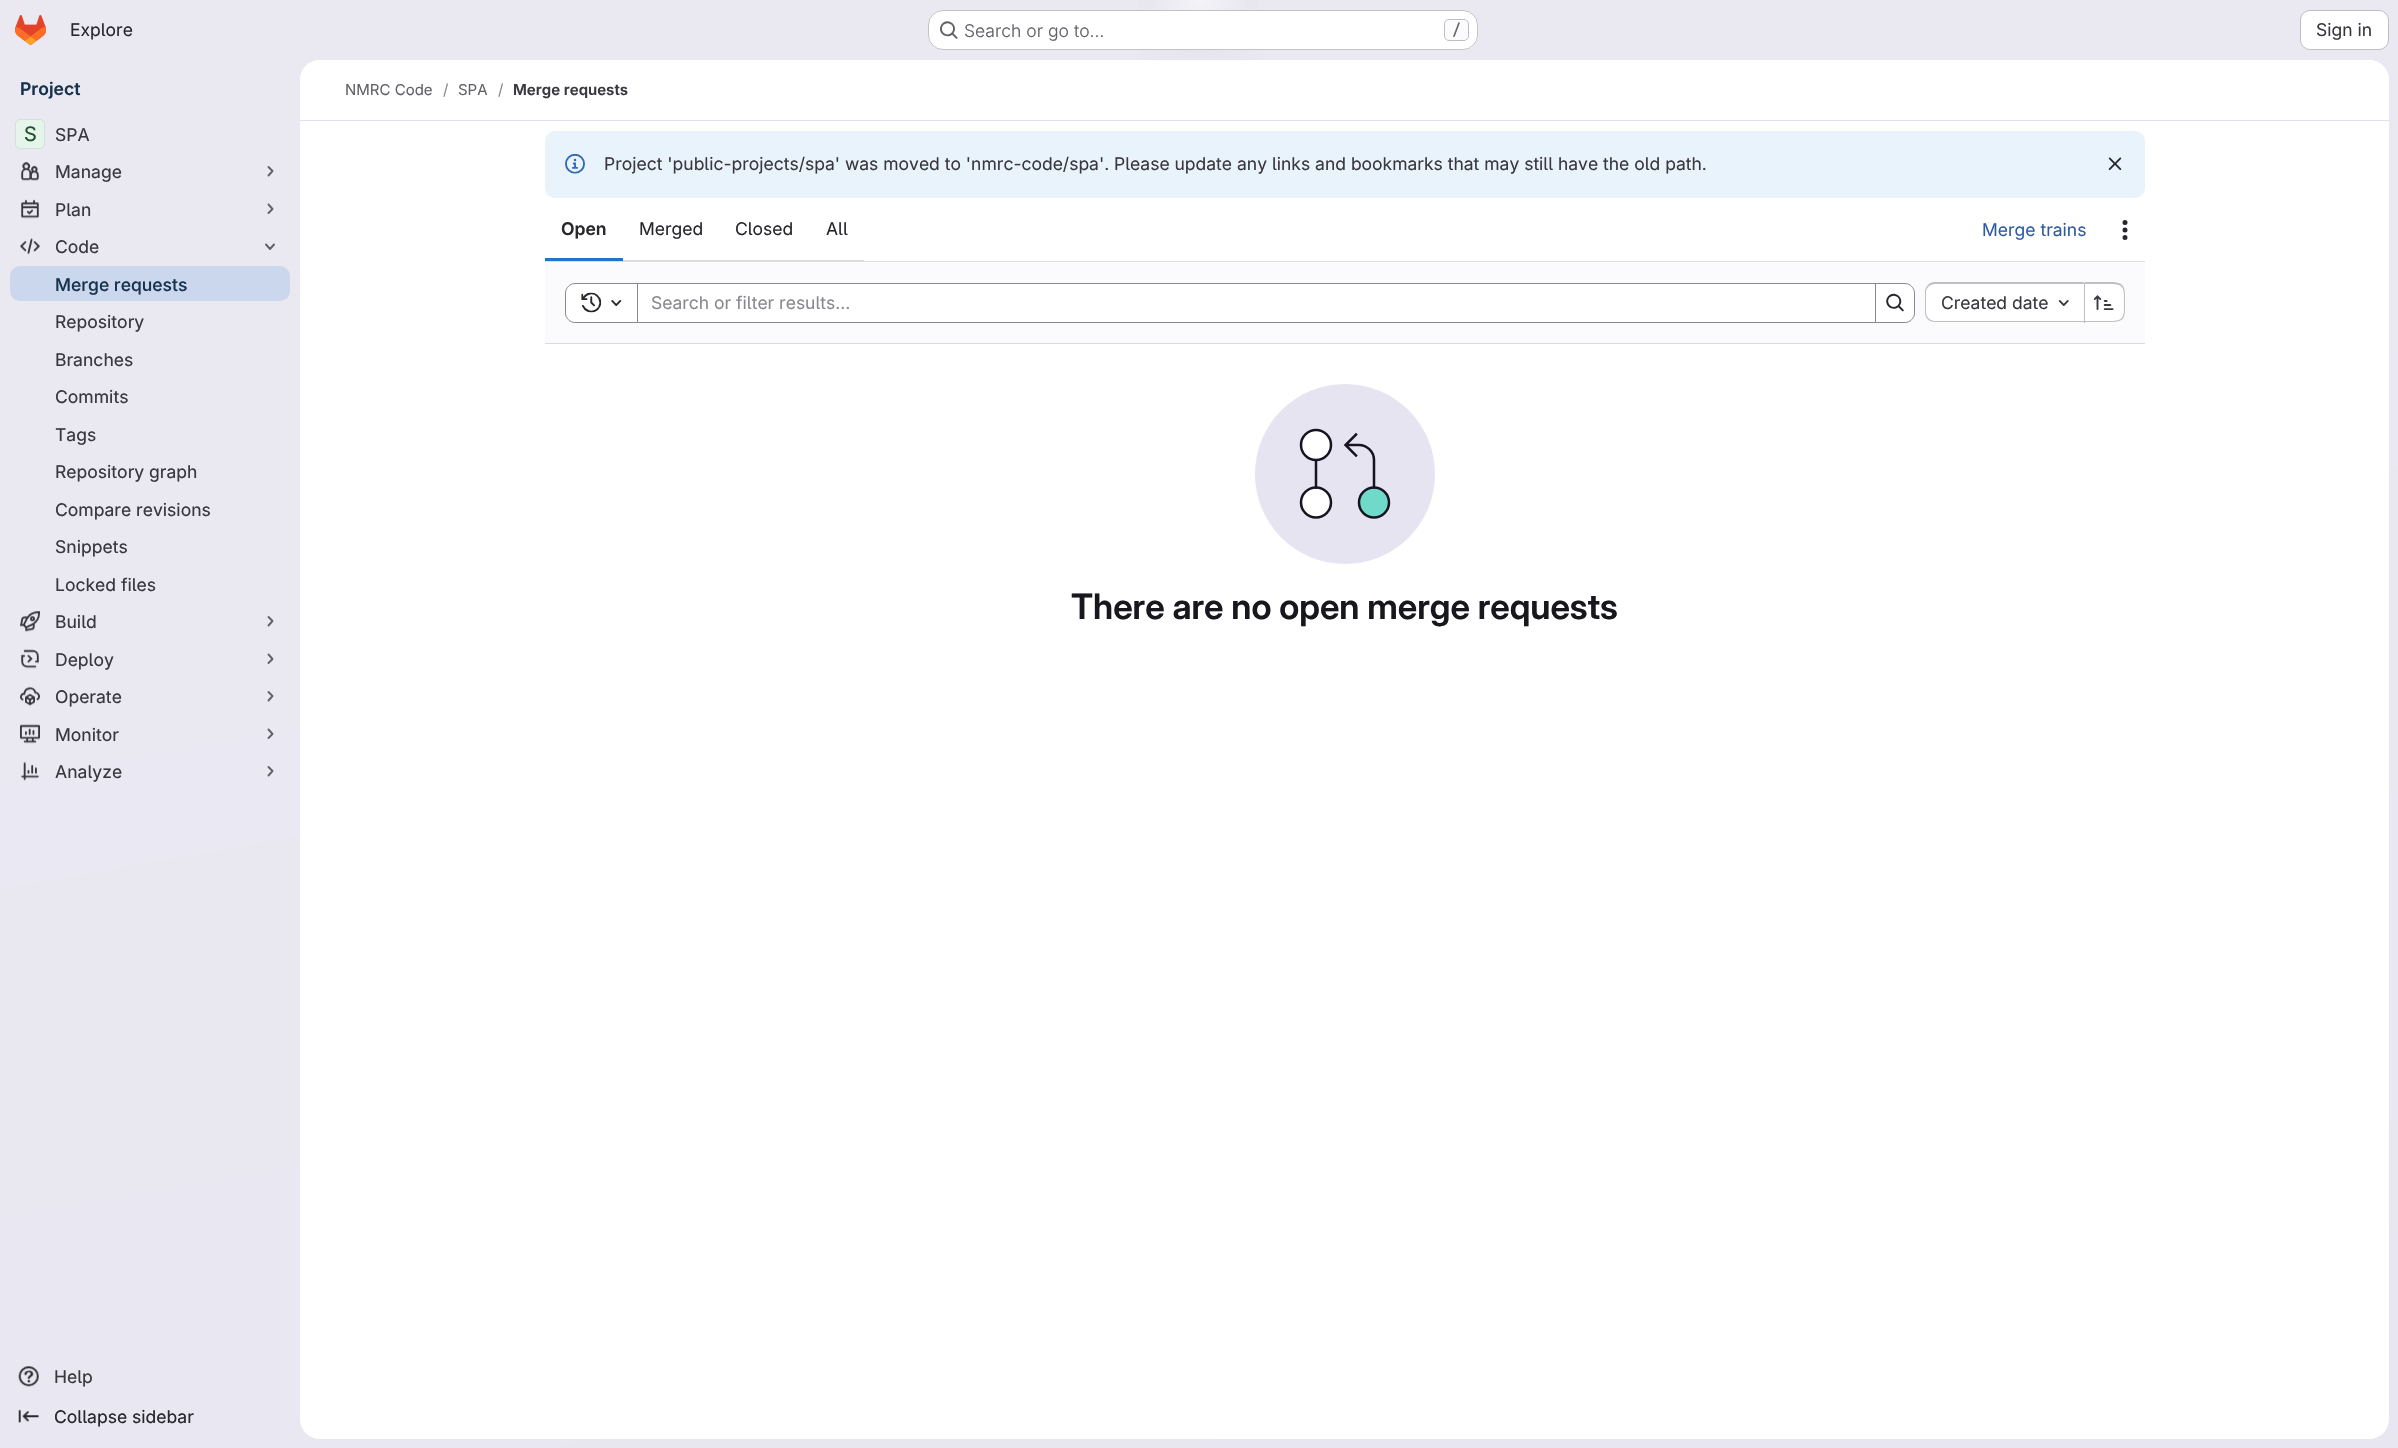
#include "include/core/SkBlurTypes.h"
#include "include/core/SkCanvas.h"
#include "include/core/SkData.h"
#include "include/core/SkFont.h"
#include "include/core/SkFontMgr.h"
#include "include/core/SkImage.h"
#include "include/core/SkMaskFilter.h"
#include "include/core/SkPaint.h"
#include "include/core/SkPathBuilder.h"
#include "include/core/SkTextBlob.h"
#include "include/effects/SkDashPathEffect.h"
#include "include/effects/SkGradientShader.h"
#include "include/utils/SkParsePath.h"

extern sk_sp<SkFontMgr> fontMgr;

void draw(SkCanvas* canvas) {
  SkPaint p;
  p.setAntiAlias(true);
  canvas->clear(SK_ColorWHITE);
  {
    const SkColor colors[] = {SkColorSetRGB(232, 230, 240), SkColorSetRGB(234, 233, 242)};
    const float stops[] = {0, 0.7f};
    const SkPoint ends[] = {{1359, 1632}, {1039, -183}};
    p.setShader(SkGradientShader::MakeLinear(ends, colors, stops, 2, SkTileMode::kClamp));
    p.setAlpha(255);
  }
  canvas->drawRect(SkRect::MakeLTRB(0, 0, 2398, 1448), p);
  {
    const SkColor colors[] = {SkColorSetRGB(228, 226, 237), SkColorSetARGB(0, 228, 226, 237)};
    const float stops[] = {0, 0.07f};
    SkMatrix m = SkMatrix::Translate(1199, 0).preScale(1199, 1449);
    p.setShader(SkGradientShader::MakeRadial({0, 0}, 1, colors, stops, 2, SkTileMode::kClamp, 0, &m));
    p.setAlpha(255);
  }
  canvas->drawRect(SkRect::MakeLTRB(1139, 0, 1259, 60), p);
  {
    const SkColor colors[] = {SkColorSetRGB(228, 226, 236), SkColorSetARGB(0, 228, 226, 236)};
    const float stops[] = {0, 0.05f};
    SkMatrix m = SkMatrix::Translate(1199, 0).preScale(1199, 1449);
    p.setShader(SkGradientShader::MakeRadial({0, 0}, 1, colors, stops, 2, SkTileMode::kClamp, 0, &m));
    p.setAlpha(255);
  }
  canvas->drawRect(SkRect::MakeLTRB(1189, 1, 1214, 30), p);
  {
    const SkColor colors[] = {SkColorSetARGB(153, 255, 255, 255), SkColorSetARGB(0, 255, 255, 255)};
    const float stops[] = {0, 0.03f};
    p.setShader(SkGradientShader::MakeRadial({1199, 0}, 1881, colors, stops, 2, SkTileMode::kClamp));
    p.setAlpha(255);
  }
  canvas->drawRect(SkRect::MakeLTRB(1152, 0, 1246, 47), p);
  canvas->drawImageRect(SkImages::DeferredFromEncodedData(SkData::MakeFromFileName("images/1.png")), SkRect::MakeLTRB(15, 15, 46, 45), SkSamplingOptions());
  p.setShader(nullptr);
  p.setColor(SK_ColorWHITE);
  canvas->drawRoundRect(SkRect::MakeLTRB(928, 10, 1478, 50), 15, 15, p);
  p.setStyle(SkPaint::kStroke_Style);
  p.setStrokeWidth(1);
  p.setColor(SkColorSetARGB(61, 5, 5, 6));
  canvas->drawRoundRect(SkRect::MakeLTRB(928.5f, 10.5f, 1477.5f, 49.5f), 14.5f, 14.5f, p);
  canvas->drawImageRect(SkImages::DeferredFromEncodedData(SkData::MakeFromFileName("images/2.png")), SkRect::MakeLTRB(940, 21, 958, 39), SkSamplingOptions());
  p.setStyle(SkPaint::kFill_Style);
  p.setColor(SkColorSetRGB(251, 250, 253));
  canvas->drawRoundRect(SkRect::MakeLTRB(1444.5f, 19.5f, 1468.5f, 40.5f), 4.5f, 4.5f, p);
  p.setStyle(SkPaint::kStroke_Style);
  p.setColor(SkColorSetRGB(191, 191, 195));
  canvas->drawRoundRect(SkRect::MakeLTRB(1444.5f, 19.5f, 1468.5f, 40.5f), 4.5f, 4.5f, p);
  p.setStyle(SkPaint::kFill_Style);
  p.setColor(SK_ColorWHITE);
  canvas->drawRoundRect(SkRect::MakeLTRB(2300.5f, 10.5f, 2388.5f, 49.5f), 9.5f, 9.5f, p);
  p.setStyle(SkPaint::kStroke_Style);
  p.setColor(SkColorSetRGB(191, 191, 195));
  canvas->drawRoundRect(SkRect::MakeLTRB(2300.5f, 10.5f, 2388.5f, 49.5f), 9.5f, 9.5f, p);
  p.setStyle(SkPaint::kFill_Style);
  p.setColor(SK_ColorWHITE);
  canvas->drawRoundRect(SkRect::MakeLTRB(15, 119, 45, 149), 5, 5, p);
  p.setColor(SkColorSetARGB(61, 145, 212, 168));
  canvas->drawRoundRect(SkRect::MakeLTRB(15, 119, 45, 149), 5, 5, p);
  p.setStyle(SkPaint::kStroke_Style);
  p.setColor(SkColorSetARGB(20, 5, 5, 6));
  canvas->drawRoundRect(SkRect::MakeLTRB(15.5f, 119.5f, 44.5f, 148.5f), 4.5f, 4.5f, p);
  canvas->drawImageRect(SkImages::DeferredFromEncodedData(SkData::MakeFromFileName("images/3.png")), SkRect::MakeLTRB(21, 162, 39, 181), SkSamplingOptions());
  p.setStrokeWidth(1.9f);
  p.setStrokeCap(SkPaint::kRound_Cap);
  p.setStrokeJoin(SkPaint::kRound_Join);
  p.setColor(SkColorSetRGB(98, 97, 104));
  canvas->drawPath(SkPathBuilder().moveTo(268.5f, 167).lineTo(272.5f, 171).lineTo(268.5f, 175.5f).detach(), p);
  canvas->drawImageRect(SkImages::DeferredFromEncodedData(SkData::MakeFromFileName("images/4.png")), SkRect::MakeLTRB(21, 199, 39, 219), SkSamplingOptions());
  canvas->drawPath(SkPathBuilder().moveTo(268.5f, 204.5f).lineTo(272.5f, 209).lineTo(268.5f, 213).detach(), p);
  canvas->drawImageRect(SkImages::DeferredFromEncodedData(SkData::MakeFromFileName("images/5.png")), SkRect::MakeLTRB(20, 238, 40, 255), SkSamplingOptions());
  canvas->drawPath(SkPathBuilder().moveTo(274, 244.5f).lineTo(270, 249).lineTo(266, 244.5f).detach(), p);
  p.setStyle(SkPaint::kFill_Style);
  p.setColor(SkColorSetRGB(202, 215, 236));
  canvas->drawRoundRect(SkRect::MakeLTRB(10, 266, 290, 301), 10, 10, p);
  canvas->drawImageRect(SkImages::DeferredFromEncodedData(SkData::MakeFromFileName("images/6.png")), SkRect::MakeLTRB(20, 611, 40, 632), SkSamplingOptions());
  p.setStyle(SkPaint::kStroke_Style);
  p.setColor(SkColorSetRGB(98, 97, 104));
  canvas->drawPath(SkPathBuilder().moveTo(268.5f, 617).lineTo(272.5f, 621).lineTo(268.5f, 625.5f).detach(), p);
  canvas->drawImageRect(SkImages::DeferredFromEncodedData(SkData::MakeFromFileName("images/7.png")), SkRect::MakeLTRB(21, 649, 39, 669), SkSamplingOptions());
  canvas->drawPath(SkPathBuilder().moveTo(268.5f, 654.5f).lineTo(272.5f, 659).lineTo(268.5f, 663).detach(), p);
  canvas->drawImageRect(SkImages::DeferredFromEncodedData(SkData::MakeFromFileName("images/8.png")), SkRect::MakeLTRB(20, 687, 40, 706), SkSamplingOptions());
  canvas->drawPath(SkPathBuilder().moveTo(268.5f, 692).lineTo(272.5f, 696).lineTo(268.5f, 700.5f).detach(), p);
  canvas->drawImageRect(SkImages::DeferredFromEncodedData(SkData::MakeFromFileName("images/9.png")), SkRect::MakeLTRB(20, 724, 40, 744), SkSamplingOptions());
  canvas->drawPath(SkPathBuilder().moveTo(268.5f, 729.5f).lineTo(272.5f, 734).lineTo(268.5f, 738).detach(), p);
  canvas->drawImageRect(SkImages::DeferredFromEncodedData(SkData::MakeFromFileName("images/10.png")), SkRect::MakeLTRB(21, 762, 39, 781), SkSamplingOptions());
  canvas->drawPath(SkPathBuilder().moveTo(268.5f, 767).lineTo(272.5f, 771).lineTo(268.5f, 775.5f).detach(), p);
  canvas->drawImageRect(SkImages::DeferredFromEncodedData(SkData::MakeFromFileName("images/11.png")), SkRect::MakeLTRB(18, 1366, 39, 1387), SkSamplingOptions());
  canvas->drawImageRect(SkImages::DeferredFromEncodedData(SkData::MakeFromFileName("images/12.png")), SkRect::MakeLTRB(18, 1409, 39, 1424), SkSamplingOptions());
  p.setStyle(SkPaint::kFill_Style);
  p.setColor(SK_ColorWHITE);
  canvas->drawRoundRect(SkRect::MakeLTRB(300, 60, 2389, 1439), 20, 20, p);
  canvas->drawPath(SkPathBuilder().moveTo(320, 60).lineTo(2369, 60).cubicTo(2380, 60, 2389, 69, 2389, 80).lineTo(2389, 121).lineTo(300, 121).lineTo(300, 80).cubicTo(300, 69, 309, 60, 320, 60).close().detach(), p);
  p.setColor(SkColorSetRGB(225, 223, 236));
  canvas->drawRect(SkRect::MakeLTRB(300, 120, 2389, 121), p);
  p.setColor(SkColorSetRGB(233, 243, 252));
  canvas->drawRoundRect(SkRect::MakeLTRB(545, 131, 2145, 198), 10, 10, p);
  canvas->drawImageRect(SkImages::DeferredFromEncodedData(SkData::MakeFromFileName("images/13.png")), SkRect::MakeLTRB(565, 153, 585, 174), SkSamplingOptions());
  canvas->drawImageRect(SkImages::DeferredFromEncodedData(SkData::MakeFromFileName("images/14.png")), SkRect::MakeLTRB(2108, 157, 2122, 170), SkSamplingOptions());
  p.setColor(SkColorSetRGB(220, 220, 222));
  canvas->drawRect(SkRect::MakeLTRB(545, 261, 2145, 262), p);
  canvas->drawRect(SkRect::MakeLTRB(623, 260, 864, 261), p);
  p.setColor(SkColorSetRGB(31, 117, 203));
  canvas->drawRect(SkRect::MakeLTRB(545, 258, 623, 261), p);
  canvas->drawImageRect(SkImages::DeferredFromEncodedData(SkData::MakeFromFileName("images/15.png")), SkRect::MakeLTRB(2122, 220, 2128, 240), SkSamplingOptions());
  p.setColor(SkColorSetRGB(251, 250, 253));
  canvas->drawRect(SkRect::MakeLTRB(545, 263, 2145, 343), p);
  p.setColor(SkColorSetRGB(220, 220, 222));
  canvas->drawRect(SkRect::MakeLTRB(545, 343, 2145, 344), p);
  p.setColor(SK_ColorWHITE);
  canvas->drawRect(SkRect::MakeLTRB(638, 284, 1875, 322), p);
  p.setStyle(SkPaint::kStroke_Style);
  p.setStrokeWidth(1);
  p.setStrokeCap(SkPaint::kButt_Cap);
  p.setStrokeJoin(SkPaint::kMiter_Join);
  p.setColor(SkColorSetRGB(137, 136, 141));
  canvas->drawRect(SkRect::MakeLTRB(636.5f, 283.5f, 1875.5f, 322.5f), p);
  p.setStyle(SkPaint::kFill_Style);
  p.setColor(SK_ColorWHITE);
  canvas->drawPath(SkPathBuilder().moveTo(575, 283.5f).lineTo(637.5f, 283.5f).lineTo(637.5f, 322.5f).lineTo(575, 322.5f).cubicTo(570, 322.5f, 565.5f, 318, 565.5f, 313).lineTo(565.5f, 293).cubicTo(565.5f, 288, 570, 283.5f, 575, 283.5f).close().detach(), p);
  p.setStyle(SkPaint::kStroke_Style);
  p.setColor(SkColorSetRGB(137, 136, 141));
  canvas->drawPath(SkPathBuilder().moveTo(575, 283.5f).lineTo(637.5f, 283.5f).lineTo(637.5f, 322.5f).lineTo(575, 322.5f).cubicTo(570, 322.5f, 565.5f, 318, 565.5f, 313).lineTo(565.5f, 293).cubicTo(565.5f, 288, 570, 283.5f, 575, 283.5f).close().detach(), p);
  canvas->drawImageRect(SkImages::DeferredFromEncodedData(SkData::MakeFromFileName("images/16.png")), SkRect::MakeLTRB(581, 292, 602, 313), SkSamplingOptions());
  canvas->drawImageRect(SkImages::DeferredFromEncodedData(SkData::MakeFromFileName("images/17.png")), SkRect::MakeLTRB(611, 300, 622, 306), SkSamplingOptions());
  p.setStyle(SkPaint::kFill_Style);
  p.setColor(SK_ColorWHITE);
  canvas->drawPath(SkPathBuilder().moveTo(1875.5f, 283.5f).lineTo(1905, 283.5f).cubicTo(1910, 283.5f, 1914.5f, 288, 1914.5f, 293).lineTo(1914.5f, 313).cubicTo(1914.5f, 318, 1910, 322.5f, 1905, 322.5f).lineTo(1875.5f, 322.5f).close().detach(), p);
  p.setStyle(SkPaint::kStroke_Style);
  p.setColor(SkColorSetRGB(137, 136, 141));
  canvas->drawPath(SkPathBuilder().moveTo(1875.5f, 283.5f).lineTo(1905, 283.5f).cubicTo(1910, 283.5f, 1914.5f, 288, 1914.5f, 293).lineTo(1914.5f, 313).cubicTo(1914.5f, 318, 1910, 322.5f, 1905, 322.5f).lineTo(1875.5f, 322.5f).close().detach(), p);
  canvas->drawImageRect(SkImages::DeferredFromEncodedData(SkData::MakeFromFileName("images/18.png")), SkRect::MakeLTRB(1886, 293, 1904, 312), SkSamplingOptions());
  p.setStyle(SkPaint::kFill_Style);
  p.setColor(SK_ColorWHITE);
  canvas->drawPath(SkPathBuilder().moveTo(1935, 284).lineTo(2084, 284).lineTo(2084, 321).lineTo(1935, 321).cubicTo(1930, 321, 1926, 317, 1926, 312).lineTo(1926, 293).cubicTo(1926, 288, 1930, 284, 1935, 284).close().detach(), p);
  p.setColor(SkColorSetRGB(191, 191, 195));
  canvas->drawPath(SkPathBuilder(SkPathFillType::kEvenOdd).moveTo(1935, 282).lineTo(2084, 282).lineTo(2084, 322).lineTo(1935, 322).cubicTo(1929, 322, 1925, 318, 1925, 312).lineTo(1925, 292).cubicTo(1925, 287, 1929, 282, 1935, 282).close().moveTo(1935, 284).lineTo(2084, 284).lineTo(2084, 321).lineTo(1935, 321).cubicTo(1930, 321, 1926, 317, 1926, 312).lineTo(1926, 292).cubicTo(1926, 288, 1930, 284, 1935, 284).close().detach(), p);
  canvas->drawImageRect(SkImages::DeferredFromEncodedData(SkData::MakeFromFileName("images/19.png")), SkRect::MakeLTRB(2058, 300, 2069, 306), SkSamplingOptions());
  p.setColor(SK_ColorWHITE);
  canvas->drawPath(SkPathBuilder().moveTo(2085, 284).lineTo(2115, 284).cubicTo(2120, 284, 2124, 288, 2124, 293).lineTo(2124, 312).cubicTo(2124, 317, 2120, 321, 2115, 321).lineTo(2085, 321).close().detach(), p);
  p.setColor(SkColorSetRGB(191, 191, 195));
  canvas->drawPath(SkPathBuilder(SkPathFillType::kEvenOdd).moveTo(2085, 282).lineTo(2110, 282).cubicTo(2126, 282, 2125, 288, 2125, 302).cubicTo(2125, 317, 2126, 322, 2110, 322).lineTo(2085, 322).close().moveTo(2085, 284).lineTo(2110, 284).cubicTo(2125, 284, 2124, 289, 2124, 302).cubicTo(2124, 316, 2125, 321, 2110, 321).lineTo(2085, 321).close().detach(), p);
  canvas->drawRect(SkRect::MakeLTRB(2084, 283, 2085, 323), p);
  canvas->drawImageRect(SkImages::DeferredFromEncodedData(SkData::MakeFromFileName("images/20.png")), SkRect::MakeLTRB(2093, 295, 2114, 310), SkSamplingOptions());
  p.setColor(SkColorSetRGB(231, 228, 242));
  canvas->drawCircle(1345, 474, 90, p);
  p.setColor(SK_ColorWHITE);
  canvas->drawCircle(1316, 502.5f, 15, p);
  p.setStyle(SkPaint::kStroke_Style);
  p.setStrokeWidth(2.5f);
  p.setColor(SkColorSetRGB(23, 19, 33));
  canvas->drawCircle(1316, 502.5f, 15, p);
  p.setStrokeCap(SkPaint::kSquare_Cap);
  canvas->drawPath(SkPathBuilder().moveTo(1316, 460).lineTo(1316, 487.5f).detach(), p);
  p.setStyle(SkPaint::kFill_Style);
  p.setColor(SK_ColorWHITE);
  canvas->drawCircle(1316, 445, 15, p);
  p.setStyle(SkPaint::kStroke_Style);
  p.setStrokeCap(SkPaint::kButt_Cap);
  p.setColor(SkColorSetRGB(23, 19, 33));
  canvas->drawCircle(1316, 445, 15, p);
  p.setStyle(SkPaint::kFill_Style);
  p.setColor(SkColorSetRGB(111, 218, 201));
  canvas->drawCircle(1374, 502.5f, 15, p);
  p.setStyle(SkPaint::kStroke_Style);
  p.setColor(SkColorSetRGB(23, 19, 33));
  canvas->drawCircle(1374, 502.5f, 15, p);
  p.setStrokeCap(SkPaint::kSquare_Cap);
  canvas->drawPath(SkPathBuilder().moveTo(1374, 487.5f).lineTo(1374, 460).cubicTo(1374, 451.5f, 1367, 445, 1359, 445).lineTo(1347.5f, 445).moveTo(1356, 434.5f).lineTo(1345.5f, 445).lineTo(1356, 455.5f).detach(), p);
  SkFont font1(fontMgr->matchFamilyStyle("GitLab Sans", SkFontStyle::Normal()), 17.5f);
  font1.setSubpixel(true);
  p.setStyle(SkPaint::kFill_Style);
  p.setColor(SkColorSetRGB(40, 39, 45));
  canvas->drawString("Explore", 70, 36, font1, p);
  SkFont font2(fontMgr->matchFamilyStyle("GitLab Sans", SkFontStyle(300, SkFontStyle::kNormal_Width, SkFontStyle::kUpright_Slant)), 17.5f);
  font2.setSubpixel(true);
  p.setColor(SkColorSetRGB(98, 97, 104));
  canvas->drawString("Search or go to…", 964, 37, font2, p);
  SkFont font3(fontMgr->matchFamilyStyle("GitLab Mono", SkFontStyle(500, SkFontStyle::kNormal_Width, SkFontStyle::kUpright_Slant)), 15);
  font3.setSubpixel(true);
  canvas->drawString("/", 1452, 35, font3, p);
  p.setColor(SkColorSetRGB(58, 56, 63));
  canvas->drawString("Sign in", 2316, 36, font1, p);
  SkFont font4(fontMgr->matchFamilyStyle("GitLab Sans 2", SkFontStyle(600, SkFontStyle::kNormal_Width, SkFontStyle::kUpright_Slant)), 17.5f);
  font4.setSubpixel(true);
  p.setColor(SkColorSetRGB(24, 51, 78));
  canvas->drawString("Project", 20, 95, font4, p);
  SkFont font5(fontMgr->matchFamilyStyle("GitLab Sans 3", SkFontStyle::Normal()), 20);
  font5.setSubpixel(true);
  p.setColor(SkColorSetRGB(34, 81, 49));
  canvas->drawString("S", 24, 141, font5, p);
  SkFont font6(fontMgr->matchFamilyStyle("GitLab Sans 2", SkFontStyle::Normal()), 17.5f);
  font6.setSubpixel(true);
  p.setColor(SkColorSetRGB(58, 56, 63));
  canvas->drawString("SPA", 55, 141, font6, p);
  canvas->drawString("Manage", 55, 178, font6, p);
  canvas->drawString("Plan", 55, 216, font6, p);
  canvas->drawString("Code", 55, 253, font6, p);
  SkFont font7(fontMgr->matchFamilyStyle("GitLab Sans", SkFontStyle(500, SkFontStyle::kNormal_Width, SkFontStyle::kUpright_Slant)), 17.5f);
  font7.setSubpixel(true);
  p.setColor(SkColorSetRGB(24, 51, 78));
  canvas->drawString("Merge requests", 55, 291, font7, p);
  p.setColor(SkColorSetRGB(58, 56, 63));
  canvas->drawString("Repository", 55, 328, font6, p);
  canvas->drawString("Branches", 55, 366, font6, p);
  canvas->drawString("Commits", 55, 403, font6, p);
  canvas->drawString("Tags", 55, 441, font6, p);
  canvas->drawString("Repository graph", 55, 478, font6, p);
  canvas->drawString("Compare revisions", 55, 516, font6, p);
  canvas->drawString("Snippets", 55, 553, font6, p);
  canvas->drawString("Locked files", 55, 591, font6, p);
  canvas->drawString("Build", 55, 628, font6, p);
  canvas->drawString("Deploy", 55, 666, font6, p);
  canvas->drawString("Operate", 55, 703, font6, p);
  canvas->drawString("Monitor", 55, 741, font6, p);
  canvas->drawString("Analyze", 55, 778, font6, p);
  canvas->drawString("Help", 54, 1383, font6, p);
  p.setColor(SkColorSetRGB(40, 39, 45));
  canvas->drawString("Collapse sidebar", 54, 1423, font6, p);
  SkFont font8(fontMgr->matchFamilyStyle("GitLab Sans", SkFontStyle::Normal()), 15);
  font8.setSubpixel(true);
  p.setColor(SkColorSetRGB(98, 97, 104));
  canvas->drawString("NMRC Code", 345, 95, font8, p);
  p.setColor(SkColorSetRGB(137, 136, 141));
  canvas->drawString("/", 443, 95, font8, p);
  p.setColor(SkColorSetRGB(98, 97, 104));
  canvas->drawString("SPA", 458, 95, font8, p);
  p.setColor(SkColorSetRGB(137, 136, 141));
  canvas->drawString("/", 498, 95, font8, p);
  SkFont font9(fontMgr->matchFamilyStyle("GitLab Sans 2", SkFontStyle(600, SkFontStyle::kNormal_Width, SkFontStyle::kUpright_Slant)), 15);
  font9.setSubpixel(true);
  p.setColor(SkColorSetRGB(58, 56, 63));
  canvas->drawString("Merge requests", 513, 95, font9, p);
  canvas->drawString("Project 'public-projects/spa' was moved to 'nmrc-code/spa'. Please update any links and bookmarks that may still have the old path.", 604, 170, font1, p);
  p.setColor(SkColorSetRGB(40, 39, 45));
  canvas->drawString("Open", 561, 235, font4, p);
  canvas->drawString("Merged", 639, 235, font1, p);
  canvas->drawString("Closed", 735, 235, font1, p);
  canvas->drawString("All", 826, 235, font1, p);
  p.setColor(SkColorSetRGB(47, 92, 160));
  canvas->drawString("Merge trains", 1982, 236, font1, p);
  p.setColor(SkColorSetRGB(137, 136, 141));
  canvas->drawString("Search or filter results…", 651, 309, font1, p);
  p.setColor(SkColorSetRGB(58, 56, 63));
  canvas->drawString("Created date", 1941, 309, font1, p);
  SkFont font10(fontMgr->matchFamilyStyle("GitLab Sans", SkFontStyle(600, SkFontStyle::kNormal_Width, SkFontStyle::kUpright_Slant)), 35);
  font10.setSubpixel(true);
  p.setColor(SkColorSetRGB(24, 23, 29));
  canvas->drawString("There are no open merge requests", 1071, 619, font10, p);
}
